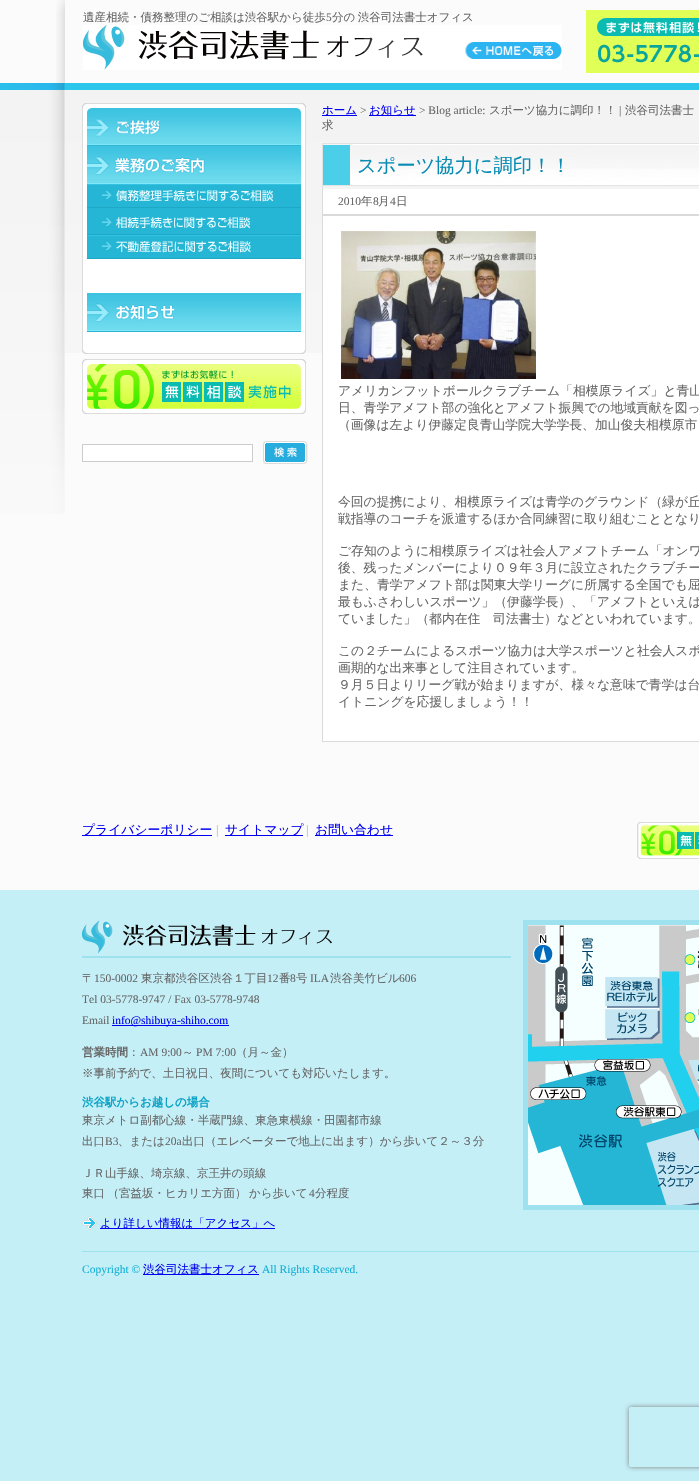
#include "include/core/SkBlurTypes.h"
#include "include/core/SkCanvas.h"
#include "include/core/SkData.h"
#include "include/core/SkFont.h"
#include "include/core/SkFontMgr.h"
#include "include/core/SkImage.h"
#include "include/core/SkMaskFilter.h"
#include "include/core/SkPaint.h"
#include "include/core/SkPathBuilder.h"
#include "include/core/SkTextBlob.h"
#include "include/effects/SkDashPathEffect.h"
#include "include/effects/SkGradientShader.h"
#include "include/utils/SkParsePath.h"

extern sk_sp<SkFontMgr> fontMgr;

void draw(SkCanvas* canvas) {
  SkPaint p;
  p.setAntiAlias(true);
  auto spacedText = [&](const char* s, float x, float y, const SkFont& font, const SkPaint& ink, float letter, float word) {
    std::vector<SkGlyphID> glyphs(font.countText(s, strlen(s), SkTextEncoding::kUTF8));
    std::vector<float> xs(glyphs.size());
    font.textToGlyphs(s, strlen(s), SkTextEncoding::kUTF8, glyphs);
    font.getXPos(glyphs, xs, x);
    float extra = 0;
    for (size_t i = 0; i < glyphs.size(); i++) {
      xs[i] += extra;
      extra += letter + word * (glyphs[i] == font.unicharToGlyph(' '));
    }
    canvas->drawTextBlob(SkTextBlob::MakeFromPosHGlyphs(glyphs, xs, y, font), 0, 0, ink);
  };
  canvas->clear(SkColorSetRGB(196, 239, 247));
  p.setColor(SkColorSetRGB(251, 251, 251));
  canvas->drawRect(SkRect::MakeLTRB(0, 0, 699, 83), p);
  canvas->drawImageRect(SkImages::DeferredFromEncodedData(SkData::MakeFromFileName("images/1.png")), SkRect::MakeLTRB(56, 0, 65, 83), SkSamplingOptions());
  canvas->drawImageRect(SkImages::DeferredFromEncodedData(SkData::MakeFromFileName("images/2.png")), SkRect::MakeLTRB(83, 25, 562, 70), SkSamplingOptions());
  canvas->drawImageRect(SkImages::DeferredFromEncodedData(SkData::MakeFromFileName("images/3.png")), SkRect::MakeLTRB(586, 10, 699, 73), SkSamplingOptions());
  canvas->drawRect(SkRect::MakeLTRB(0, 353, 699, 890), p);
  canvas->drawImageRect(SkImages::DeferredFromEncodedData(SkData::MakeFromFileName("images/4.png")), SkRect::MakeLTRB(65, 83, 699, 353), SkSamplingOptions());
  canvas->drawImageRect(SkImages::DeferredFromEncodedData(SkData::MakeFromFileName("images/5.png")), SkRect::MakeLTRB(0, 83, 65, 514), SkSamplingOptions());
  canvas->drawImageRect(SkImages::DeferredFromEncodedData(SkData::MakeFromFileName("images/6.png")), SkRect::MakeLTRB(82, 103, 306, 350), SkSamplingOptions());
  canvas->drawImageRect(SkImages::DeferredFromEncodedData(SkData::MakeFromFileName("images/7.png")), SkRect::MakeLTRB(82, 350, 306, 354), SkSamplingOptions());
  canvas->drawImageRect(SkImages::DeferredFromEncodedData(SkData::MakeFromFileName("images/8.png")), SkRect::MakeLTRB(87, 108, 301, 146), SkSamplingOptions());
  canvas->drawImageRect(SkImages::DeferredFromEncodedData(SkData::MakeFromFileName("images/9.png")), SkRect::MakeLTRB(87, 146, 301, 184), SkSamplingOptions());
  canvas->drawImageRect(SkImages::DeferredFromEncodedData(SkData::MakeFromFileName("images/10.png")), SkRect::MakeLTRB(87, 184, 301, 208), SkSamplingOptions());
  canvas->drawImageRect(SkImages::DeferredFromEncodedData(SkData::MakeFromFileName("images/11.png")), SkRect::MakeLTRB(87, 208, 301, 235), SkSamplingOptions());
  canvas->drawImageRect(SkImages::DeferredFromEncodedData(SkData::MakeFromFileName("images/12.png")), SkRect::MakeLTRB(87, 235, 301, 259), SkSamplingOptions());
  canvas->drawImageRect(SkImages::DeferredFromEncodedData(SkData::MakeFromFileName("images/13.png")), SkRect::MakeLTRB(87, 293, 301, 332), SkSamplingOptions());
  canvas->drawImageRect(SkImages::DeferredFromEncodedData(SkData::MakeFromFileName("images/14.png")), SkRect::MakeLTRB(82, 359, 306, 414), SkSamplingOptions());
  p.setColor(SK_ColorWHITE);
  canvas->drawRect(SkRect::MakeLTRB(82.5f, 444.5f, 252.5f, 461.5f), p);
  p.setStyle(SkPaint::kStroke_Style);
  p.setStrokeWidth(1);
  p.setColor(SkColorSetRGB(204, 204, 204));
  canvas->drawRect(SkRect::MakeLTRB(82.5f, 444.5f, 252.5f, 461.5f), p);
  canvas->drawImageRect(SkImages::DeferredFromEncodedData(SkData::MakeFromFileName("images/15.png")), SkRect::MakeLTRB(263, 441, 308, 464), SkSamplingOptions());
  p.setStyle(SkPaint::kFill_Style);
  p.setColor(SkColorSetRGB(0, 0, 238));
  canvas->drawRect(SkRect::MakeLTRB(322, 115, 357, 116), p);
  canvas->drawRect(SkRect::MakeLTRB(369, 115, 416, 116), p);
  canvas->drawImageRect(SkImages::DeferredFromEncodedData(SkData::MakeFromFileName("images/16.png")), SkRect::MakeLTRB(322, 143, 699, 189), SkSamplingOptions());
  canvas->drawImageRect(SkImages::DeferredFromEncodedData(SkData::MakeFromFileName("images/17.png")), SkRect::MakeLTRB(323, 143, 699, 169), SkSamplingOptions());
  p.setColor(SK_ColorWHITE);
  canvas->drawRect(SkRect::MakeLTRB(323, 189, 699, 214), p);
  p.setColor(SkColorSetRGB(218, 218, 218));
  canvas->drawRect(SkRect::MakeLTRB(322, 214, 699, 215), p);
  canvas->drawRect(SkRect::MakeLTRB(322, 189, 323, 215), p);
  p.setColor(SK_ColorWHITE);
  canvas->drawRect(SkRect::MakeLTRB(322.5f, 215.5f, 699.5f, 741.5f), p);
  p.setStyle(SkPaint::kStroke_Style);
  p.setColor(SkColorSetRGB(218, 218, 218));
  canvas->drawRect(SkRect::MakeLTRB(322.5f, 215.5f, 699.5f, 741.5f), p);
  canvas->drawImageRect(SkImages::DeferredFromEncodedData(SkData::MakeFromFileName("images/18.png")), SkRect::MakeLTRB(341, 231, 536, 379), SkSamplingOptions());
  p.setStyle(SkPaint::kFill_Style);
  p.setColor(SkColorSetRGB(0, 0, 238));
  canvas->drawRect(SkRect::MakeLTRB(82, 835, 212, 836), p);
  canvas->drawRect(SkRect::MakeLTRB(225, 835, 303, 836), p);
  canvas->drawRect(SkRect::MakeLTRB(315, 835, 393, 836), p);
  canvas->drawImageRect(SkImages::DeferredFromEncodedData(SkData::MakeFromFileName("images/19.png")), SkRect::MakeLTRB(637, 822, 699, 859), SkSamplingOptions());
  canvas->drawImageRect(SkImages::DeferredFromEncodedData(SkData::MakeFromFileName("images/20.png")), SkRect::MakeLTRB(82, 920, 511, 958), SkSamplingOptions());
  canvas->drawRect(SkRect::MakeLTRB(112, 1025, 229, 1026), p);
  canvas->drawImageRect(SkImages::DeferredFromEncodedData(SkData::MakeFromFileName("images/21.png")), SkRect::MakeLTRB(82, 1216, 97, 1230), SkSamplingOptions());
  canvas->drawRect(SkRect::MakeLTRB(100, 1228, 275, 1229), p);
  p.setColor(SkColorSetRGB(159, 226, 239));
  canvas->drawRect(SkRect::MakeLTRB(523, 920, 699, 1210), p);
  canvas->drawImageRect(SkImages::DeferredFromEncodedData(SkData::MakeFromFileName("images/22.png")), SkRect::MakeLTRB(528, 925, 699, 1205), SkSamplingOptions());
  canvas->drawRect(SkRect::MakeLTRB(82, 1251, 699, 1252), p);
  p.setColor(SkColorSetRGB(0, 0, 238));
  canvas->drawRect(SkRect::MakeLTRB(143, 1274, 259, 1275), p);
  canvas->save();
  canvas->clipPath(SkPathBuilder(SkPathFillType::kEvenOdd).moveTo(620, 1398).lineTo(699, 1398).lineTo(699, 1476).lineTo(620, 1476).close().moveTo(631, 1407).lineTo(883, 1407).cubicTo(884, 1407, 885, 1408, 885, 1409).lineTo(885, 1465).cubicTo(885, 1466, 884, 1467, 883, 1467).lineTo(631, 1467).cubicTo(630, 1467, 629, 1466, 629, 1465).lineTo(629, 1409).cubicTo(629, 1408, 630, 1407, 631, 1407).close().detach(), true);
  p.setColor(SkColorSetRGB(128, 128, 128));
  p.setMaskFilter(SkMaskFilter::MakeBlur(kNormal_SkBlurStyle, 2.5f));
  canvas->drawRoundRect(SkRect::MakeLTRB(629, 1407, 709, 1467), 2, 2, p);
  p.setMaskFilter(nullptr);
  canvas->restore();
  SkFont font1(fontMgr->matchFamilyStyle("WenQuanYi Zen Hei", SkFontStyle(500, SkFontStyle::kNormal_Width, SkFontStyle::kUpright_Slant)), 11.5f);
  font1.setSubpixel(true);
  p.setColor(SkColorSetRGB(102, 102, 102));
  canvas->drawString("遺産相続・債務整理のご相談は渋谷駅から徒歩", 83, 21, font1, p);
  SkFont font2(fontMgr->matchFamilyStyle("Liberation Serif", SkFontStyle::Normal()), 11.5f);
  font2.setSubpixel(true);
  canvas->drawString("5", 326, 21, font2, p);
  spacedText("分の 渋谷司法書士オフィス", 332, 21, font1, p, 0, -1);
  p.setColor(SkColorSetRGB(0, 0, 238));
  canvas->drawString("ホーム", 322, 114, font1, p);
  p.setColor(SkColorSetRGB(102, 102, 102));
  canvas->drawString(">", 360, 114, font2, p);
  p.setColor(SkColorSetRGB(0, 0, 238));
  canvas->drawString("お知らせ", 369, 114, font1, p);
  p.setColor(SkColorSetRGB(102, 102, 102));
  canvas->drawString("> Blog article:", 419, 114, font2, p);
  canvas->drawString("スポーツ協力に調印！！", 489, 114, font1, p);
  canvas->drawString("|", 619, 114, font2, p);
  canvas->drawString("渋谷司法書士", 625, 114, font1, p);
  canvas->drawString("求", 322, 129, font1, p);
  SkFont font3(fontMgr->matchFamilyStyle("WenQuanYi Zen Hei", SkFontStyle(500, SkFontStyle::kNormal_Width, SkFontStyle::kUpright_Slant)), 19.25f);
  font3.setSubpixel(true);
  p.setColor(SkColorSetRGB(9, 139, 179));
  canvas->drawString("スポーツ協力に調印！！", 357, 172, font3, p);
  p.setColor(SkColorSetRGB(102, 102, 102));
  canvas->drawString("2010", 338, 205, font2, p);
  canvas->drawString("年", 361, 205, font1, p);
  canvas->drawString("8", 373, 205, font2, p);
  canvas->drawString("月", 378, 205, font1, p);
  canvas->drawString("4", 390, 205, font2, p);
  canvas->drawString("日", 396, 205, font1, p);
  SkFont font4(fontMgr->matchFamilyStyle("WenQuanYi Zen Hei", SkFontStyle(500, SkFontStyle::kNormal_Width, SkFontStyle::kUpright_Slant)), 12.8f);
  font4.setSubpixel(true);
  canvas->drawString("アメリカンフットボールクラブチーム「相模原ライズ」と青山", 338, 395, font4, p);
  canvas->drawString("日、青学アメフト部の強化とアメフト振興での地域貢献を図っ", 338, 412, font4, p);
  canvas->drawString("（画像は左より伊藤定良青山学院大学学長、加山俊夫相模原市", 338, 429, font4, p);
  canvas->drawString("今回の提携により、相模原ライズは青学のグラウンド（緑が丘", 338, 506, font4, p);
  canvas->drawString("戦指導のコーチを派遣するほか合同練習に取り組むこととなり", 338, 523, font4, p);
  canvas->drawString("ご存知のように相模原ライズは社会人アメフトチーム「オンワ", 338, 555, font4, p);
  canvas->drawString("後、残ったメンバーにより０９年３月に設立されたクラブチー", 338, 572, font4, p);
  canvas->drawString("また、青学アメフト部は関東大学リーグに所属する全国でも屈", 338, 589, font4, p);
  canvas->drawString("最もふさわしいスポーツ」（伊藤学長）、「アメフトといえば", 338, 606, font4, p);
  canvas->drawString("ていました」（都内在住　司法書士）などといわれています。", 338, 623, font4, p);
  canvas->drawString("この２チームによるスポーツ協力は大学スポーツと社会人スポ", 338, 655, font4, p);
  canvas->drawString("画期的な出来事として注目されています。", 338, 672, font4, p);
  canvas->drawString("９月５日よりリーグ戦が始まりますが、様々な意味で青学は台", 338, 689, font4, p);
  canvas->drawString("イトニングを応援しましょう！！", 338, 706, font4, p);
  p.setColor(SkColorSetRGB(0, 0, 238));
  canvas->drawString("プライバシーポリシー", 82, 834, font4, p);
  SkFont font5(fontMgr->matchFamilyStyle("Liberation Serif", SkFontStyle::Normal()), 12.8f);
  font5.setSubpixel(true);
  p.setColor(SkColorSetRGB(150, 200, 209));
  canvas->drawString("|", 216, 834, font5, p);
  p.setColor(SkColorSetRGB(0, 0, 238));
  canvas->drawString("サイトマップ", 225, 834, font4, p);
  p.setColor(SkColorSetRGB(150, 200, 209));
  canvas->drawString("|", 306, 834, font5, p);
  p.setColor(SkColorSetRGB(0, 0, 238));
  canvas->drawString("お問い合わせ", 315, 834, font4, p);
  p.setColor(SkColorSetRGB(102, 102, 102));
  canvas->drawString("〒", 82, 982, font1, p);
  canvas->drawString("150-0002", 94, 982, font2, p);
  canvas->drawString("東京都渋谷区渋谷１丁目", 141, 982, font1, p);
  canvas->drawString("12", 267, 982, font2, p);
  canvas->drawString("番", 279, 982, font1, p);
  canvas->drawString("8", 290, 982, font2, p);
  canvas->drawString("号", 296, 982, font1, p);
  canvas->drawString("ILA", 310, 982, font2, p);
  canvas->drawString("渋谷美竹ビル", 330, 982, font1, p);
  canvas->drawString("606", 399, 982, font2, p);
  canvas->drawString("Tel 03-5778-9747 / Fax 03-5778-9748", 82, 1003, font2, p);
  canvas->drawString("Email", 82, 1024, font2, p);
  p.setColor(SkColorSetRGB(0, 0, 238));
  canvas->drawString("info@shibuya-shiho.com", 112, 1024, font2, p);
  SkFont font6(fontMgr->matchFamilyStyle("WenQuanYi Zen Hei", SkFontStyle::Bold()), 11.5f);
  font6.setSubpixel(true);
  p.setColor(SkColorSetRGB(102, 102, 102));
  canvas->drawString("営業時間", 82, 1056, font6, p);
  canvas->drawString("：", 128, 1056, font1, p);
  canvas->drawString("AM 9:00", 140, 1056, font2, p);
  canvas->drawString("～", 182, 1056, font1, p);
  canvas->drawString("PM 7:00", 196, 1056, font2, p);
  canvas->drawString("（月～金）", 236, 1056, font1, p);
  canvas->drawString("※事前予約で、土日祝日、夜間についても対応いたします。", 82, 1077, font1, p);
  p.setColor(SkColorSetRGB(10, 162, 198));
  canvas->drawString("渋谷駅からお越しの場合", 82, 1106, font6, p);
  p.setColor(SkColorSetRGB(102, 102, 102));
  canvas->drawString("東京メトロ副都心線・半蔵門線、東急東横線・田園都市線", 82, 1124, font1, p);
  canvas->drawString("出口", 82, 1145, font1, p);
  canvas->drawString("B3", 105, 1145, font2, p);
  canvas->drawString("、または", 118, 1145, font1, p);
  canvas->drawString("20a", 165, 1145, font2, p);
  canvas->drawString("出口（エレベーターで地上に出ます）から歩いて２～３分", 182, 1145, font1, p);
  canvas->drawString("ＪＲ山手線、埼京線、京王井の頭線", 82, 1177, font1, p);
  spacedText("東口 （宮益坂・ヒカリエ方面） から歩いて", 82, 1197, font1, p, 0, -1);
  canvas->drawString("4", 309, 1197, font2, p);
  canvas->drawString("分程度", 315, 1197, font1, p);
  p.setColor(SkColorSetRGB(0, 0, 238));
  canvas->drawString("より詳しい情報は「アクセス」へ", 100, 1227, font1, p);
  p.setColor(SkColorSetRGB(18, 175, 212));
  canvas->drawString("Copyright ©", 82, 1273, font2, p);
  p.setColor(SkColorSetRGB(0, 0, 238));
  canvas->drawString("渋谷司法書士オフィス", 143, 1273, font1, p);
  p.setColor(SkColorSetRGB(18, 175, 212));
  canvas->drawString("All Rights Reserved.", 262, 1273, font2, p);
}
